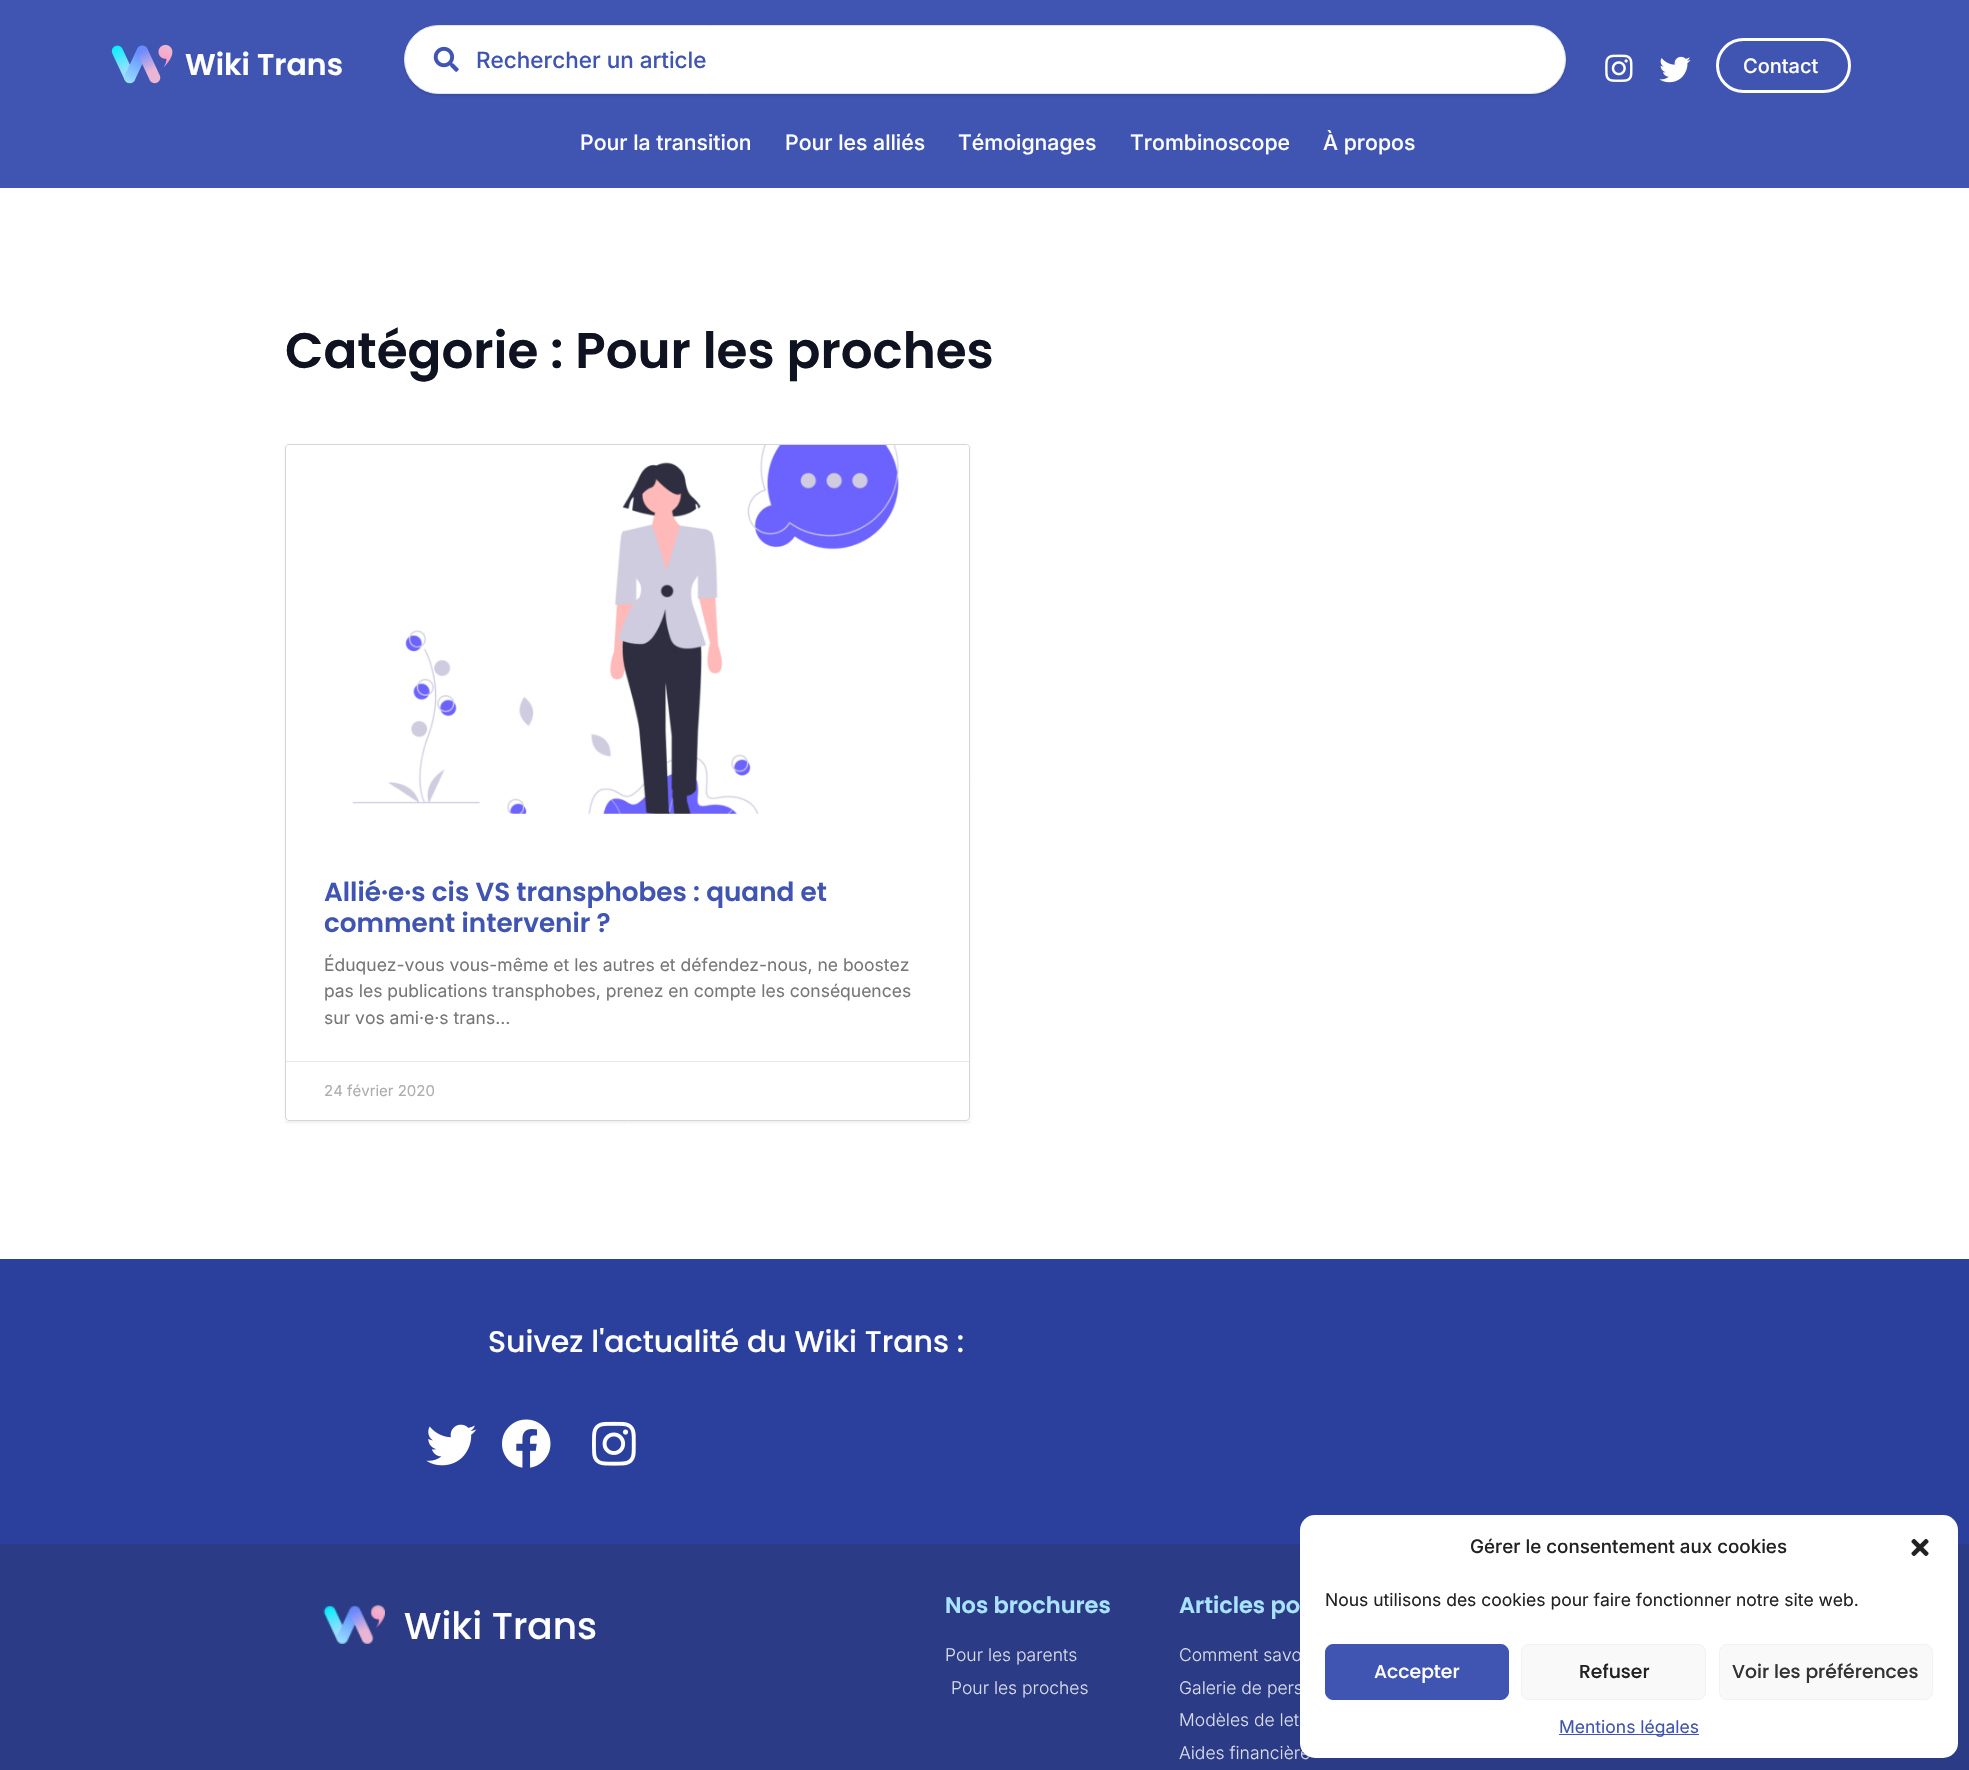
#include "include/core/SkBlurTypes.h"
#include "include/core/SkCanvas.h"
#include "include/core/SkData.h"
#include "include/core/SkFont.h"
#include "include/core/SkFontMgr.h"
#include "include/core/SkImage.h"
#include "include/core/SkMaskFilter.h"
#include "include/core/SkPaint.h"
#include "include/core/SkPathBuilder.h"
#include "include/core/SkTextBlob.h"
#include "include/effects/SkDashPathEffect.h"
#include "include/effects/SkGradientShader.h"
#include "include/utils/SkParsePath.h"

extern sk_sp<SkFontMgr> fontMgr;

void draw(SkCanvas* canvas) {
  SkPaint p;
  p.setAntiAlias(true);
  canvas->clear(SK_ColorWHITE);
  p.setColor(SkColorSetRGB(64, 84, 178));
  canvas->drawRect(SkRect::MakeLTRB(0, 0, 1969, 188), p);
  canvas->drawImageRect(SkImages::DeferredFromEncodedData(SkData::MakeFromFileName("images/1.png")), SkRect::MakeLTRB(111, 44, 173, 84), SkSamplingOptions());
  p.setColor(SkColorSetARGB(18, 0, 0, 0));
  p.setMaskFilter(SkMaskFilter::MakeBlur(kNormal_SkBlurStyle, 1));
  canvas->drawRoundRect(SkRect::MakeLTRB(404, 28, 1566, 96), 34, 34, p);
  p.setMaskFilter(nullptr);
  p.setColor(SK_ColorWHITE);
  canvas->drawRoundRect(SkRect::MakeLTRB(404.5f, 25.5f, 1565.5f, 93.5f), 34, 34, p);
  p.setStyle(SkPaint::kStroke_Style);
  p.setStrokeWidth(1);
  p.setColor(SkColorSetRGB(225, 229, 235));
  canvas->drawRoundRect(SkRect::MakeLTRB(404.5f, 25.5f, 1565.5f, 93.5f), 34, 34, p);
  canvas->drawImageRect(SkImages::DeferredFromEncodedData(SkData::MakeFromFileName("images/2.png")), SkRect::MakeLTRB(433, 46, 459, 72), SkSamplingOptions());
  canvas->drawImageRect(SkImages::DeferredFromEncodedData(SkData::MakeFromFileName("images/3.png")), SkRect::MakeLTRB(1605, 54, 1633, 82), SkSamplingOptions());
  canvas->drawImageRect(SkImages::DeferredFromEncodedData(SkData::MakeFromFileName("images/4.png")), SkRect::MakeLTRB(1659, 56, 1691, 83), SkSamplingOptions());
  p.setStrokeWidth(3);
  p.setColor(SK_ColorWHITE);
  canvas->drawRoundRect(SkRect::MakeLTRB(1717.5f, 39.5f, 1849.5f, 91.5f), 26, 26, p);
  canvas->save();
  canvas->clipPath(SkPathBuilder(SkPathFillType::kEvenOdd).moveTo(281, 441).lineTo(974, 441).lineTo(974, 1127).lineTo(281, 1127).close().moveTo(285, 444).lineTo(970, 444).lineTo(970, 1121).lineTo(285, 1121).close().detach(), true);
  p.setStyle(SkPaint::kFill_Style);
  p.setColor(SkColorSetRGB(240, 240, 240));
  p.setMaskFilter(SkMaskFilter::MakeBlur(kNormal_SkBlurStyle, 1));
  canvas->drawRect(SkRect::MakeLTRB(285, 445, 970, 1123), p);
  p.setMaskFilter(nullptr);
  canvas->restore();
  p.setStyle(SkPaint::kStroke_Style);
  p.setStrokeWidth(1);
  p.setColor(SkColorSetRGB(214, 214, 214));
  canvas->drawRoundRect(SkRect::MakeLTRB(285.5f, 444.5f, 969.5f, 1120.5f), 3.5f, 3.5f, p);
  canvas->drawImageRect(SkImages::DeferredFromEncodedData(SkData::MakeFromFileName("images/5.png")), SkRect::MakeLTRB(286, 445, 969, 814), SkSamplingOptions());
  p.setStyle(SkPaint::kFill_Style);
  p.setColor(SkColorSetRGB(232, 232, 232));
  canvas->drawRect(SkRect::MakeLTRB(286, 1061, 969, 1062), p);
  p.setColor(SkColorSetRGB(43, 63, 157));
  canvas->drawRect(SkRect::MakeLTRB(0, 1259, 1969, 1544), p);
  canvas->drawImageRect(SkImages::DeferredFromEncodedData(SkData::MakeFromFileName("images/6.png")), SkRect::MakeLTRB(426, 1424, 477, 1466), SkSamplingOptions());
  canvas->drawImageRect(SkImages::DeferredFromEncodedData(SkData::MakeFromFileName("images/7.png")), SkRect::MakeLTRB(502, 1419, 551, 1468), SkSamplingOptions());
  canvas->drawImageRect(SkImages::DeferredFromEncodedData(SkData::MakeFromFileName("images/8.png")), SkRect::MakeLTRB(592, 1421, 636, 1466), SkSamplingOptions());
  p.setColor(SkColorSetRGB(43, 59, 133));
  canvas->drawRect(SkRect::MakeLTRB(0, 1544, 1969, 1770), p);
  canvas->drawImageRect(SkImages::DeferredFromEncodedData(SkData::MakeFromFileName("images/9.png")), SkRect::MakeLTRB(323, 1604, 385, 1644), SkSamplingOptions());
  SkFont font1(fontMgr->matchFamilyStyle("Poppins", SkFontStyle(600, SkFontStyle::kNormal_Width, SkFontStyle::kUpright_Slant)), 30);
  font1.setSubpixel(true);
  p.setColor(SK_ColorWHITE);
  canvas->drawString("Wiki Trans", 185, 75, font1, p);
  SkFont font2(fontMgr->matchFamilyStyle("Inter", SkFontStyle(500, SkFontStyle::kNormal_Width, SkFontStyle::kUpright_Slant)), 22.5f);
  font2.setSubpixel(true);
  p.setColor(SkColorSetRGB(64, 84, 178));
  canvas->drawString("Rechercher un article", 476, 68, font2, p);
  SkFont font3(fontMgr->matchFamilyStyle("Inter", SkFontStyle(500, SkFontStyle::kNormal_Width, SkFontStyle::kUpright_Slant)), 20);
  font3.setSubpixel(true);
  p.setColor(SK_ColorWHITE);
  canvas->drawString("Contact", 1743, 73, font3, p);
  SkFont font4(fontMgr->matchFamilyStyle("Inter", SkFontStyle(500, SkFontStyle::kNormal_Width, SkFontStyle::kUpright_Slant)), 21.25f);
  font4.setSubpixel(true);
  canvas->drawString("Pour la transition", 580, 150, font4, p);
  canvas->drawString("Pour les alliés", 785, 150, font4, p);
  canvas->drawString("Témoignages", 958, 150, font4, p);
  canvas->drawString("Trombinoscope", 1130, 150, font4, p);
  canvas->drawString("À propos", 1323, 150, font4, p);
  SkFont font5(fontMgr->matchFamilyStyle("Poppins", SkFontStyle(600, SkFontStyle::kNormal_Width, SkFontStyle::kUpright_Slant)), 50);
  font5.setSubpixel(true);
  p.setColor(SkColorSetRGB(15, 18, 32));
  canvas->drawString("Catégorie : Pour les proches", 285, 368, font5, p);
  SkFont font6(fontMgr->matchFamilyStyle("Poppins", SkFontStyle(600, SkFontStyle::kNormal_Width, SkFontStyle::kUpright_Slant)), 26.25f);
  font6.setSubpixel(true);
  p.setColor(SkColorSetRGB(64, 84, 178));
  canvas->drawString("Allié·e·s cis VS transphobes : quand et", 324, 901, font6, p);
  canvas->drawString("comment intervenir ?", 324, 932, font6, p);
  SkFont font7(fontMgr->matchFamilyStyle("Inter", SkFontStyle::Normal()), 17.5f);
  font7.setSubpixel(true);
  p.setColor(SkColorSetRGB(119, 119, 119));
  canvas->drawString("Éduquez-vous vous-même et les autres et défendez-nous, ne boostez", 324, 971, font7, p);
  canvas->drawString("pas les publications transphobes, prenez en compte les conséquences", 324, 997, font7, p);
  canvas->drawString("sur vos ami·e·s trans…", 324, 1024, font7, p);
  SkFont font8(fontMgr->matchFamilyStyle("Inter", SkFontStyle::Normal()), 15);
  font8.setSubpixel(true);
  p.setColor(SkColorSetRGB(173, 173, 173));
  canvas->drawString("24 février 2020", 324, 1096, font8, p);
  SkFont font9(fontMgr->matchFamilyStyle("Poppins", SkFontStyle(500, SkFontStyle::kNormal_Width, SkFontStyle::kUpright_Slant)), 30);
  font9.setSubpixel(true);
  p.setColor(SK_ColorWHITE);
  canvas->drawString("Suivez l'actualité du Wiki Trans :", 488, 1352, font9, p);
  SkFont font10(fontMgr->matchFamilyStyle("Poppins", SkFontStyle(500, SkFontStyle::kNormal_Width, SkFontStyle::kUpright_Slant)), 37.5f);
  font10.setSubpixel(true);
  canvas->drawString("Wiki Trans", 404, 1639, font10, p);
  SkFont font11(fontMgr->matchFamilyStyle("Poppins", SkFontStyle(600, SkFontStyle::kNormal_Width, SkFontStyle::kUpright_Slant)), 22.5f);
  font11.setSubpixel(true);
  p.setColor(SkColorSetRGB(168, 227, 255));
  canvas->drawString("Nos brochures", 945, 1613, font11, p);
  SkFont font12(fontMgr->matchFamilyStyle("Inter", SkFontStyle(300, SkFontStyle::kNormal_Width, SkFontStyle::kUpright_Slant)), 17.5f);
  font12.setSubpixel(true);
  p.setColor(SkColorSetRGB(217, 220, 233));
  canvas->drawString("Pour les parents", 945, 1661, font12, p);
  canvas->drawString("Pour les proches", 951, 1694, font12, p);
  p.setColor(SkColorSetRGB(168, 227, 255));
  canvas->drawString("Articles po", 1179, 1613, font11, p);
  p.setColor(SkColorSetRGB(217, 220, 233));
  canvas->drawString("Comment savo", 1179, 1661, font12, p);
  canvas->drawString("Galerie de pers", 1179, 1694, font12, p);
  canvas->drawString("Modèles de let", 1179, 1726, font12, p);
  canvas->drawString("Aides financière", 1179, 1759, font12, p);
  p.setColor(SK_ColorWHITE);
  canvas->drawRoundRect(SkRect::MakeLTRB(1300, 1515, 1958, 1758), 15, 15, p);
  SkFont font13(fontMgr->matchFamilyStyle("Inter", SkFontStyle(500, SkFontStyle::kNormal_Width, SkFontStyle::kUpright_Slant)), 18.75f);
  font13.setSubpixel(true);
  p.setColor(SkColorSetRGB(34, 34, 34));
  canvas->drawString("Gérer le consentement aux cookies", 1470, 1553, font13, p);
  canvas->drawImageRect(SkImages::DeferredFromEncodedData(SkData::MakeFromFileName("images/10.png")), SkRect::MakeLTRB(1911, 1538, 1929, 1556), SkSamplingOptions());
  canvas->drawString("Nous utilisons des cookies pour faire fonctionner notre site web.", 1325, 1606, font7, p);
  p.setColor(SkColorSetRGB(64, 84, 178));
  canvas->drawRoundRect(SkRect::MakeLTRB(1325.5f, 1644.5f, 1508.5f, 1699.5f), 7.5f, 7.5f, p);
  p.setStyle(SkPaint::kStroke_Style);
  canvas->drawRoundRect(SkRect::MakeLTRB(1325.5f, 1644.5f, 1508.5f, 1699.5f), 7.5f, 7.5f, p);
  SkFont font14(fontMgr->matchFamilyStyle("Poppins", SkFontStyle(500, SkFontStyle::kNormal_Width, SkFontStyle::kUpright_Slant)), 18.75f);
  font14.setSubpixel(true);
  p.setStyle(SkPaint::kFill_Style);
  p.setColor(SK_ColorWHITE);
  canvas->drawString("Accepter", 1374, 1678, font14, p);
  p.setColor(SkColorSetRGB(249, 249, 249));
  canvas->drawRoundRect(SkRect::MakeLTRB(1521.5f, 1644.5f, 1705.5f, 1699.5f), 7.5f, 7.5f, p);
  p.setStyle(SkPaint::kStroke_Style);
  p.setColor(SkColorSetRGB(242, 242, 242));
  canvas->drawRoundRect(SkRect::MakeLTRB(1521.5f, 1644.5f, 1705.5f, 1699.5f), 7.5f, 7.5f, p);
  p.setStyle(SkPaint::kFill_Style);
  p.setColor(SkColorSetRGB(34, 34, 34));
  canvas->drawString("Refuser", 1579, 1678, font14, p);
  p.setColor(SkColorSetRGB(249, 249, 249));
  canvas->drawRoundRect(SkRect::MakeLTRB(1719.5f, 1644.5f, 1932.5f, 1699.5f), 7.5f, 7.5f, p);
  p.setStyle(SkPaint::kStroke_Style);
  p.setColor(SkColorSetRGB(242, 242, 242));
  canvas->drawRoundRect(SkRect::MakeLTRB(1719.5f, 1644.5f, 1932.5f, 1699.5f), 7.5f, 7.5f, p);
  p.setStyle(SkPaint::kFill_Style);
  p.setColor(SkColorSetRGB(51, 51, 51));
  canvas->drawString("Voir les préférences", 1732, 1678, font14, p);
  p.setColor(SkColorSetRGB(64, 84, 178));
  canvas->drawRect(SkRect::MakeLTRB(1559, 1734, 1699, 1735), p);
  canvas->drawString("Mentions légales", 1559, 1733, font7, p);
}
